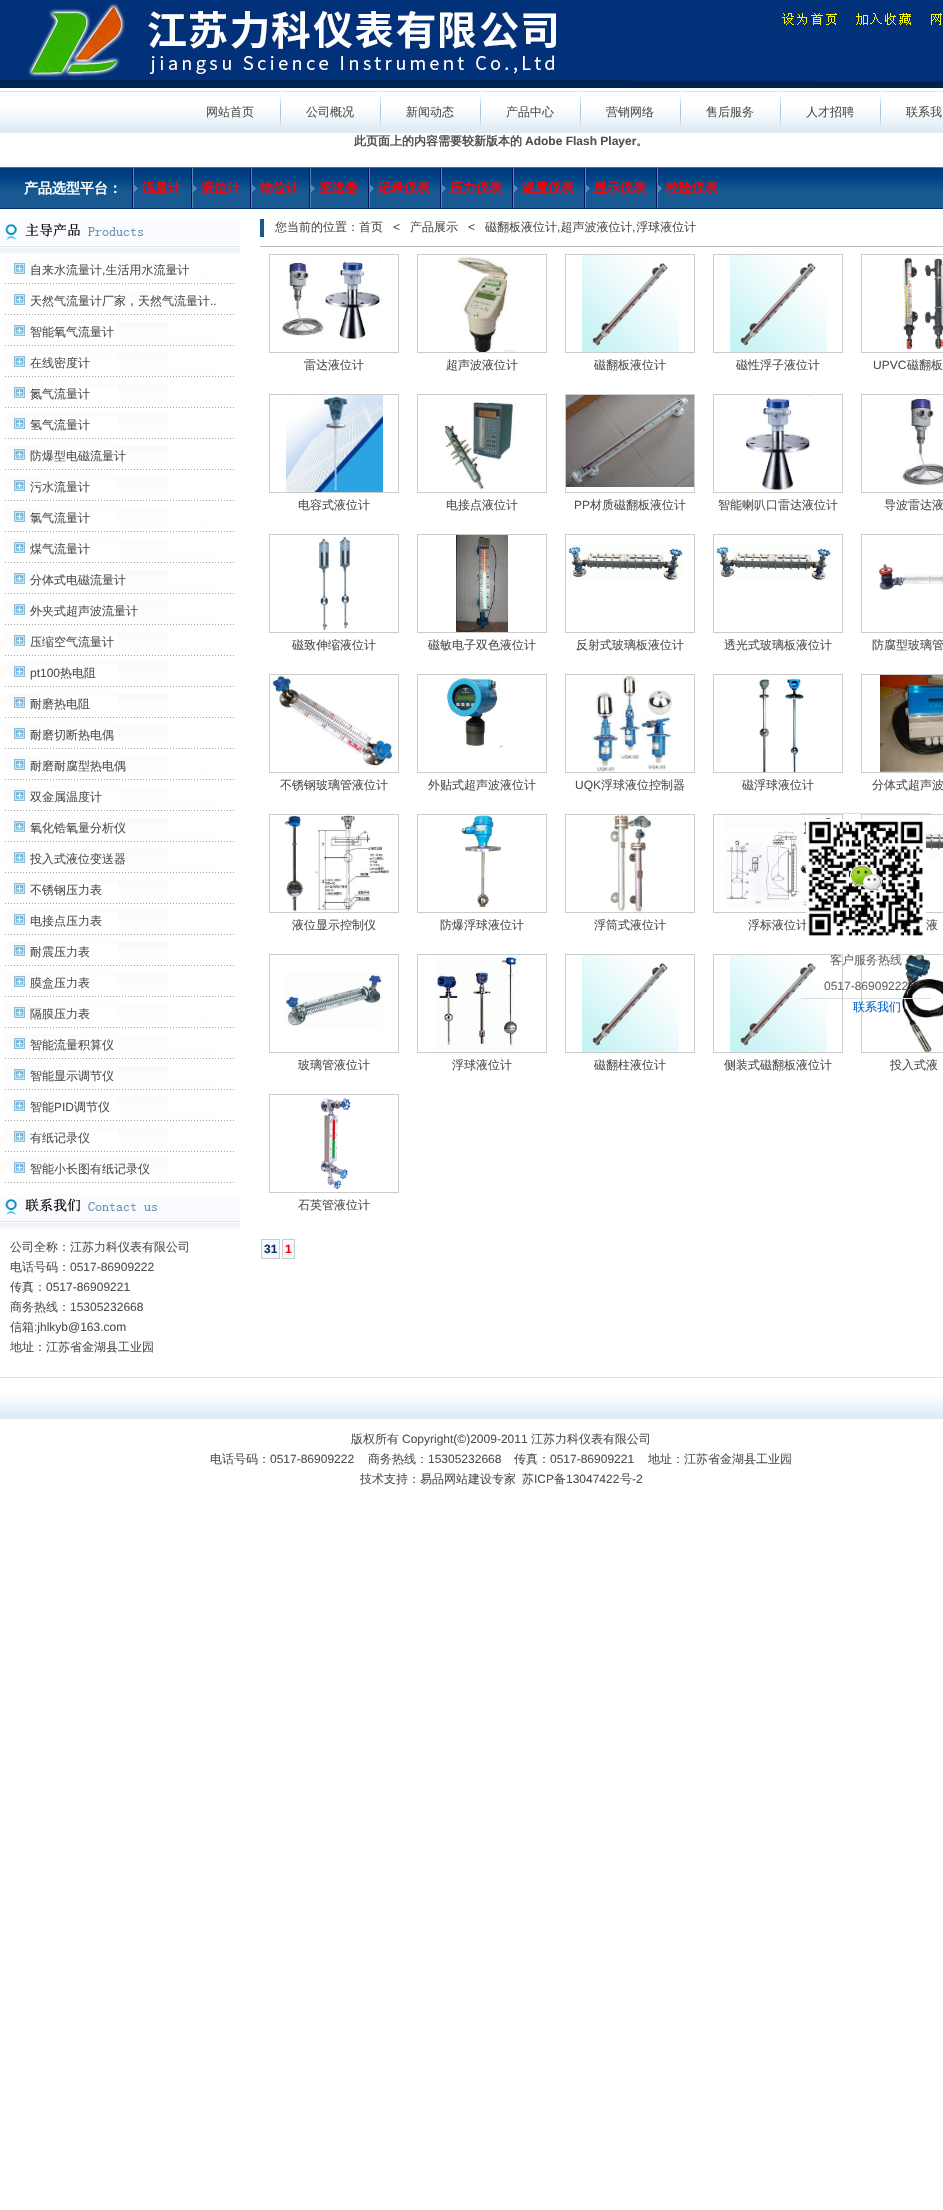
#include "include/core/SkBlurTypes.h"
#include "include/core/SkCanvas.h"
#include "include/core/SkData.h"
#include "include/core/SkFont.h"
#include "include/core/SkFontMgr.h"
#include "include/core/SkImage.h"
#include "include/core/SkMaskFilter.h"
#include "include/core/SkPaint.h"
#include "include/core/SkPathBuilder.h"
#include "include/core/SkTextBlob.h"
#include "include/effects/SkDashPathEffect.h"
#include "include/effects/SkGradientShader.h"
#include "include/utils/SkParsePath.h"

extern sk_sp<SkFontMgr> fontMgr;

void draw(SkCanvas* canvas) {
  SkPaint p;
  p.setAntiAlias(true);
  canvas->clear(SK_ColorWHITE);
  canvas->drawImageRect(SkImages::DeferredFromEncodedData(SkData::MakeFromFileName("images/1.png")), SkRect::MakeLTRB(0, 0, 943, 88), SkSamplingOptions());
  canvas->drawImageRect(SkImages::DeferredFromEncodedData(SkData::MakeFromFileName("images/2.png")), SkRect::MakeLTRB(0, 91, 943, 133), SkSamplingOptions());
  canvas->drawImageRect(SkImages::DeferredFromEncodedData(SkData::MakeFromFileName("images/3.png")), SkRect::MakeLTRB(280, 91, 281, 130), SkSamplingOptions());
  canvas->drawImageRect(SkImages::DeferredFromEncodedData(SkData::MakeFromFileName("images/3.png")), SkRect::MakeLTRB(380, 91, 381, 130), SkSamplingOptions());
  canvas->drawImageRect(SkImages::DeferredFromEncodedData(SkData::MakeFromFileName("images/3.png")), SkRect::MakeLTRB(480, 91, 481, 130), SkSamplingOptions());
  canvas->drawImageRect(SkImages::DeferredFromEncodedData(SkData::MakeFromFileName("images/3.png")), SkRect::MakeLTRB(580, 91, 581, 130), SkSamplingOptions());
  canvas->drawImageRect(SkImages::DeferredFromEncodedData(SkData::MakeFromFileName("images/3.png")), SkRect::MakeLTRB(680, 91, 681, 130), SkSamplingOptions());
  canvas->drawImageRect(SkImages::DeferredFromEncodedData(SkData::MakeFromFileName("images/3.png")), SkRect::MakeLTRB(780, 91, 781, 130), SkSamplingOptions());
  canvas->drawImageRect(SkImages::DeferredFromEncodedData(SkData::MakeFromFileName("images/3.png")), SkRect::MakeLTRB(880, 91, 881, 130), SkSamplingOptions());
  canvas->drawImageRect(SkImages::DeferredFromEncodedData(SkData::MakeFromFileName("images/4.png")), SkRect::MakeLTRB(0, 167, 943, 209), SkSamplingOptions());
  canvas->drawImageRect(SkImages::DeferredFromEncodedData(SkData::MakeFromFileName("images/5.png")), SkRect::MakeLTRB(132, 168, 174, 208), SkSamplingOptions());
  canvas->drawImageRect(SkImages::DeferredFromEncodedData(SkData::MakeFromFileName("images/5.png")), SkRect::MakeLTRB(191, 168, 233, 208), SkSamplingOptions());
  canvas->drawImageRect(SkImages::DeferredFromEncodedData(SkData::MakeFromFileName("images/6.png")), SkRect::MakeLTRB(250, 168, 258, 208), SkSamplingOptions());
  canvas->drawImageRect(SkImages::DeferredFromEncodedData(SkData::MakeFromFileName("images/6.png")), SkRect::MakeLTRB(309, 168, 317, 208), SkSamplingOptions());
  canvas->drawImageRect(SkImages::DeferredFromEncodedData(SkData::MakeFromFileName("images/7.png")), SkRect::MakeLTRB(368, 168, 430, 208), SkSamplingOptions());
  canvas->drawImageRect(SkImages::DeferredFromEncodedData(SkData::MakeFromFileName("images/7.png")), SkRect::MakeLTRB(440, 168, 502, 208), SkSamplingOptions());
  canvas->drawImageRect(SkImages::DeferredFromEncodedData(SkData::MakeFromFileName("images/7.png")), SkRect::MakeLTRB(512, 168, 574, 208), SkSamplingOptions());
  canvas->drawImageRect(SkImages::DeferredFromEncodedData(SkData::MakeFromFileName("images/7.png")), SkRect::MakeLTRB(584, 168, 646, 208), SkSamplingOptions());
  canvas->drawImageRect(SkImages::DeferredFromEncodedData(SkData::MakeFromFileName("images/7.png")), SkRect::MakeLTRB(656, 168, 718, 208), SkSamplingOptions());
  canvas->drawImageRect(SkImages::DeferredFromEncodedData(SkData::MakeFromFileName("images/8.png")), SkRect::MakeLTRB(0, 219, 240, 254), SkSamplingOptions());
  canvas->drawImageRect(SkImages::DeferredFromEncodedData(SkData::MakeFromFileName("images/9.png")), SkRect::MakeLTRB(5, 260, 234, 284), SkSamplingOptions());
  canvas->drawImageRect(SkImages::DeferredFromEncodedData(SkData::MakeFromFileName("images/9.png")), SkRect::MakeLTRB(5, 291, 234, 315), SkSamplingOptions());
  canvas->drawImageRect(SkImages::DeferredFromEncodedData(SkData::MakeFromFileName("images/9.png")), SkRect::MakeLTRB(5, 322, 234, 346), SkSamplingOptions());
  canvas->drawImageRect(SkImages::DeferredFromEncodedData(SkData::MakeFromFileName("images/9.png")), SkRect::MakeLTRB(5, 353, 234, 377), SkSamplingOptions());
  canvas->drawImageRect(SkImages::DeferredFromEncodedData(SkData::MakeFromFileName("images/9.png")), SkRect::MakeLTRB(5, 384, 234, 408), SkSamplingOptions());
  canvas->drawImageRect(SkImages::DeferredFromEncodedData(SkData::MakeFromFileName("images/9.png")), SkRect::MakeLTRB(5, 415, 234, 439), SkSamplingOptions());
  canvas->drawImageRect(SkImages::DeferredFromEncodedData(SkData::MakeFromFileName("images/9.png")), SkRect::MakeLTRB(5, 446, 234, 470), SkSamplingOptions());
  canvas->drawImageRect(SkImages::DeferredFromEncodedData(SkData::MakeFromFileName("images/9.png")), SkRect::MakeLTRB(5, 477, 234, 501), SkSamplingOptions());
  canvas->drawImageRect(SkImages::DeferredFromEncodedData(SkData::MakeFromFileName("images/9.png")), SkRect::MakeLTRB(5, 508, 234, 532), SkSamplingOptions());
  canvas->drawImageRect(SkImages::DeferredFromEncodedData(SkData::MakeFromFileName("images/9.png")), SkRect::MakeLTRB(5, 539, 234, 563), SkSamplingOptions());
  canvas->drawImageRect(SkImages::DeferredFromEncodedData(SkData::MakeFromFileName("images/9.png")), SkRect::MakeLTRB(5, 570, 234, 594), SkSamplingOptions());
  canvas->drawImageRect(SkImages::DeferredFromEncodedData(SkData::MakeFromFileName("images/9.png")), SkRect::MakeLTRB(5, 601, 234, 625), SkSamplingOptions());
  canvas->drawImageRect(SkImages::DeferredFromEncodedData(SkData::MakeFromFileName("images/9.png")), SkRect::MakeLTRB(5, 632, 234, 656), SkSamplingOptions());
  canvas->drawImageRect(SkImages::DeferredFromEncodedData(SkData::MakeFromFileName("images/9.png")), SkRect::MakeLTRB(5, 663, 234, 687), SkSamplingOptions());
  canvas->drawImageRect(SkImages::DeferredFromEncodedData(SkData::MakeFromFileName("images/9.png")), SkRect::MakeLTRB(5, 694, 234, 718), SkSamplingOptions());
  canvas->drawImageRect(SkImages::DeferredFromEncodedData(SkData::MakeFromFileName("images/9.png")), SkRect::MakeLTRB(5, 725, 234, 749), SkSamplingOptions());
  canvas->drawImageRect(SkImages::DeferredFromEncodedData(SkData::MakeFromFileName("images/9.png")), SkRect::MakeLTRB(5, 756, 234, 780), SkSamplingOptions());
  canvas->drawImageRect(SkImages::DeferredFromEncodedData(SkData::MakeFromFileName("images/9.png")), SkRect::MakeLTRB(5, 787, 234, 811), SkSamplingOptions());
  canvas->drawImageRect(SkImages::DeferredFromEncodedData(SkData::MakeFromFileName("images/9.png")), SkRect::MakeLTRB(5, 818, 234, 842), SkSamplingOptions());
  canvas->drawImageRect(SkImages::DeferredFromEncodedData(SkData::MakeFromFileName("images/9.png")), SkRect::MakeLTRB(5, 849, 234, 873), SkSamplingOptions());
  canvas->drawImageRect(SkImages::DeferredFromEncodedData(SkData::MakeFromFileName("images/9.png")), SkRect::MakeLTRB(5, 880, 234, 904), SkSamplingOptions());
  canvas->drawImageRect(SkImages::DeferredFromEncodedData(SkData::MakeFromFileName("images/9.png")), SkRect::MakeLTRB(5, 911, 234, 935), SkSamplingOptions());
  canvas->drawImageRect(SkImages::DeferredFromEncodedData(SkData::MakeFromFileName("images/9.png")), SkRect::MakeLTRB(5, 942, 234, 966), SkSamplingOptions());
  canvas->drawImageRect(SkImages::DeferredFromEncodedData(SkData::MakeFromFileName("images/9.png")), SkRect::MakeLTRB(5, 973, 234, 997), SkSamplingOptions());
  canvas->drawImageRect(SkImages::DeferredFromEncodedData(SkData::MakeFromFileName("images/9.png")), SkRect::MakeLTRB(5, 1004, 234, 1028), SkSamplingOptions());
  canvas->drawImageRect(SkImages::DeferredFromEncodedData(SkData::MakeFromFileName("images/9.png")), SkRect::MakeLTRB(5, 1035, 234, 1059), SkSamplingOptions());
  canvas->drawImageRect(SkImages::DeferredFromEncodedData(SkData::MakeFromFileName("images/9.png")), SkRect::MakeLTRB(5, 1066, 234, 1090), SkSamplingOptions());
  canvas->drawImageRect(SkImages::DeferredFromEncodedData(SkData::MakeFromFileName("images/9.png")), SkRect::MakeLTRB(5, 1097, 234, 1121), SkSamplingOptions());
  canvas->drawImageRect(SkImages::DeferredFromEncodedData(SkData::MakeFromFileName("images/9.png")), SkRect::MakeLTRB(5, 1128, 234, 1152), SkSamplingOptions());
  canvas->drawImageRect(SkImages::DeferredFromEncodedData(SkData::MakeFromFileName("images/9.png")), SkRect::MakeLTRB(5, 1159, 234, 1183), SkSamplingOptions());
  canvas->drawImageRect(SkImages::DeferredFromEncodedData(SkData::MakeFromFileName("images/10.png")), SkRect::MakeLTRB(0, 1194, 240, 1229), SkSamplingOptions());
  canvas->drawImageRect(SkImages::DeferredFromEncodedData(SkData::MakeFromFileName("images/11.png")), SkRect::MakeLTRB(260, 219, 943, 247), SkSamplingOptions());
  p.setStyle(SkPaint::kStroke_Style);
  p.setStrokeWidth(1);
  p.setColor(SkColorSetRGB(204, 204, 204));
  canvas->drawRect(SkRect::MakeLTRB(269.5f, 254.5f, 398.5f, 352.5f), p);
  canvas->drawImageRect(SkImages::DeferredFromEncodedData(SkData::MakeFromFileName("images/12.png")), SkRect::MakeLTRB(281, 259, 381, 341), SkSamplingOptions());
  canvas->drawRect(SkRect::MakeLTRB(417.5f, 254.5f, 546.5f, 352.5f), p);
  canvas->drawImageRect(SkImages::DeferredFromEncodedData(SkData::MakeFromFileName("images/13.png")), SkRect::MakeLTRB(457, 255, 516, 352), SkSamplingOptions());
  canvas->drawRect(SkRect::MakeLTRB(565.5f, 254.5f, 694.5f, 352.5f), p);
  canvas->drawImageRect(SkImages::DeferredFromEncodedData(SkData::MakeFromFileName("images/14.png")), SkRect::MakeLTRB(582, 255, 679, 352), SkSamplingOptions());
  canvas->drawRect(SkRect::MakeLTRB(713.5f, 254.5f, 842.5f, 352.5f), p);
  canvas->drawImageRect(SkImages::DeferredFromEncodedData(SkData::MakeFromFileName("images/14.png")), SkRect::MakeLTRB(730, 255, 827, 352), SkSamplingOptions());
  canvas->drawRect(SkRect::MakeLTRB(861.5f, 254.5f, 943.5f, 352.5f), p);
  canvas->drawImageRect(SkImages::DeferredFromEncodedData(SkData::MakeFromFileName("images/15.png")), SkRect::MakeLTRB(903, 258, 943, 350), SkSamplingOptions());
  canvas->drawRect(SkRect::MakeLTRB(269.5f, 394.5f, 398.5f, 492.5f), p);
  canvas->drawImageRect(SkImages::DeferredFromEncodedData(SkData::MakeFromFileName("images/16.png")), SkRect::MakeLTRB(286, 395, 383, 492), SkSamplingOptions());
  canvas->drawRect(SkRect::MakeLTRB(417.5f, 394.5f, 546.5f, 492.5f), p);
  canvas->drawImageRect(SkImages::DeferredFromEncodedData(SkData::MakeFromFileName("images/17.png")), SkRect::MakeLTRB(441, 402, 518, 490), SkSamplingOptions());
  canvas->drawRect(SkRect::MakeLTRB(565.5f, 394.5f, 694.5f, 492.5f), p);
  canvas->drawImageRect(SkImages::DeferredFromEncodedData(SkData::MakeFromFileName("images/18.png")), SkRect::MakeLTRB(566, 395, 694, 487), SkSamplingOptions());
  canvas->drawRect(SkRect::MakeLTRB(713.5f, 394.5f, 842.5f, 492.5f), p);
  canvas->drawImageRect(SkImages::DeferredFromEncodedData(SkData::MakeFromFileName("images/19.png")), SkRect::MakeLTRB(746, 395, 811, 492), SkSamplingOptions());
  canvas->drawRect(SkRect::MakeLTRB(861.5f, 394.5f, 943.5f, 492.5f), p);
  canvas->drawImageRect(SkImages::DeferredFromEncodedData(SkData::MakeFromFileName("images/20.png")), SkRect::MakeLTRB(900, 397, 943, 486), SkSamplingOptions());
  canvas->drawRect(SkRect::MakeLTRB(269.5f, 534.5f, 398.5f, 632.5f), p);
  canvas->drawImageRect(SkImages::DeferredFromEncodedData(SkData::MakeFromFileName("images/21.png")), SkRect::MakeLTRB(318, 536, 351, 631), SkSamplingOptions());
  canvas->drawRect(SkRect::MakeLTRB(417.5f, 534.5f, 546.5f, 632.5f), p);
  canvas->drawImageRect(SkImages::DeferredFromEncodedData(SkData::MakeFromFileName("images/22.png")), SkRect::MakeLTRB(456, 535, 508, 632), SkSamplingOptions());
  canvas->drawRect(SkRect::MakeLTRB(565.5f, 534.5f, 694.5f, 632.5f), p);
  canvas->drawImageRect(SkImages::DeferredFromEncodedData(SkData::MakeFromFileName("images/23.png")), SkRect::MakeLTRB(567, 545, 683, 581), SkSamplingOptions());
  canvas->drawRect(SkRect::MakeLTRB(713.5f, 534.5f, 842.5f, 632.5f), p);
  canvas->drawImageRect(SkImages::DeferredFromEncodedData(SkData::MakeFromFileName("images/23.png")), SkRect::MakeLTRB(715, 545, 831, 581), SkSamplingOptions());
  canvas->drawRect(SkRect::MakeLTRB(861.5f, 534.5f, 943.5f, 632.5f), p);
  canvas->drawImageRect(SkImages::DeferredFromEncodedData(SkData::MakeFromFileName("images/24.png")), SkRect::MakeLTRB(879, 563, 943, 590), SkSamplingOptions());
  canvas->drawRect(SkRect::MakeLTRB(269.5f, 674.5f, 398.5f, 772.5f), p);
  canvas->drawImageRect(SkImages::DeferredFromEncodedData(SkData::MakeFromFileName("images/25.png")), SkRect::MakeLTRB(270, 675, 394, 766), SkSamplingOptions());
  canvas->drawRect(SkRect::MakeLTRB(417.5f, 674.5f, 546.5f, 772.5f), p);
  canvas->drawImageRect(SkImages::DeferredFromEncodedData(SkData::MakeFromFileName("images/26.png")), SkRect::MakeLTRB(445, 675, 503, 748), SkSamplingOptions());
  canvas->drawRect(SkRect::MakeLTRB(565.5f, 674.5f, 694.5f, 772.5f), p);
  canvas->drawImageRect(SkImages::DeferredFromEncodedData(SkData::MakeFromFileName("images/27.png")), SkRect::MakeLTRB(592, 675, 673, 772), SkSamplingOptions());
  canvas->drawRect(SkRect::MakeLTRB(713.5f, 674.5f, 842.5f, 772.5f), p);
  canvas->drawImageRect(SkImages::DeferredFromEncodedData(SkData::MakeFromFileName("images/28.png")), SkRect::MakeLTRB(758, 677, 804, 772), SkSamplingOptions());
  canvas->drawRect(SkRect::MakeLTRB(861.5f, 674.5f, 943.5f, 772.5f), p);
  canvas->drawImageRect(SkImages::DeferredFromEncodedData(SkData::MakeFromFileName("images/29.png")), SkRect::MakeLTRB(880, 675, 943, 772), SkSamplingOptions());
  canvas->drawRect(SkRect::MakeLTRB(269.5f, 814.5f, 398.5f, 912.5f), p);
  canvas->drawImageRect(SkImages::DeferredFromEncodedData(SkData::MakeFromFileName("images/30.png")), SkRect::MakeLTRB(284, 815, 390, 912), SkSamplingOptions());
  canvas->drawRect(SkRect::MakeLTRB(417.5f, 814.5f, 546.5f, 912.5f), p);
  canvas->drawImageRect(SkImages::DeferredFromEncodedData(SkData::MakeFromFileName("images/31.png")), SkRect::MakeLTRB(461, 815, 501, 908), SkSamplingOptions());
  canvas->drawRect(SkRect::MakeLTRB(565.5f, 814.5f, 694.5f, 912.5f), p);
  canvas->drawImageRect(SkImages::DeferredFromEncodedData(SkData::MakeFromFileName("images/32.png")), SkRect::MakeLTRB(610, 815, 651, 912), SkSamplingOptions());
  canvas->drawRect(SkRect::MakeLTRB(713.5f, 814.5f, 842.5f, 912.5f), p);
  canvas->drawImageRect(SkImages::DeferredFromEncodedData(SkData::MakeFromFileName("images/33.png")), SkRect::MakeLTRB(725, 817, 832, 907), SkSamplingOptions());
  canvas->drawRect(SkRect::MakeLTRB(861.5f, 814.5f, 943.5f, 912.5f), p);
  canvas->drawImageRect(SkImages::DeferredFromEncodedData(SkData::MakeFromFileName("images/34.png")), SkRect::MakeLTRB(926, 825, 943, 859), SkSamplingOptions());
  canvas->drawRect(SkRect::MakeLTRB(269.5f, 954.5f, 398.5f, 1052.5f), p);
  canvas->drawImageRect(SkImages::DeferredFromEncodedData(SkData::MakeFromFileName("images/35.png")), SkRect::MakeLTRB(284, 973, 383, 1027), SkSamplingOptions());
  canvas->drawRect(SkRect::MakeLTRB(417.5f, 954.5f, 546.5f, 1052.5f), p);
  canvas->drawImageRect(SkImages::DeferredFromEncodedData(SkData::MakeFromFileName("images/36.png")), SkRect::MakeLTRB(435, 955, 520, 1052), SkSamplingOptions());
  canvas->drawRect(SkRect::MakeLTRB(565.5f, 954.5f, 694.5f, 1052.5f), p);
  canvas->drawImageRect(SkImages::DeferredFromEncodedData(SkData::MakeFromFileName("images/14.png")), SkRect::MakeLTRB(582, 955, 679, 1052), SkSamplingOptions());
  canvas->drawRect(SkRect::MakeLTRB(713.5f, 954.5f, 842.5f, 1052.5f), p);
  canvas->drawImageRect(SkImages::DeferredFromEncodedData(SkData::MakeFromFileName("images/14.png")), SkRect::MakeLTRB(730, 955, 827, 1052), SkSamplingOptions());
  canvas->drawRect(SkRect::MakeLTRB(861.5f, 954.5f, 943.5f, 1052.5f), p);
  canvas->drawImageRect(SkImages::DeferredFromEncodedData(SkData::MakeFromFileName("images/37.png")), SkRect::MakeLTRB(902, 955, 943, 1052), SkSamplingOptions());
  canvas->drawRect(SkRect::MakeLTRB(269.5f, 1094.5f, 398.5f, 1192.5f), p);
  canvas->drawImageRect(SkImages::DeferredFromEncodedData(SkData::MakeFromFileName("images/38.png")), SkRect::MakeLTRB(320, 1098, 351, 1190), SkSamplingOptions());
  p.setStyle(SkPaint::kFill_Style);
  p.setColor(SkColorSetRGB(245, 249, 254));
  canvas->drawRect(SkRect::MakeLTRB(261.5f, 1239.5f, 279.5f, 1258.5f), p);
  p.setStyle(SkPaint::kStroke_Style);
  p.setColor(SkColorSetRGB(204, 204, 204));
  canvas->drawRect(SkRect::MakeLTRB(261.5f, 1239.5f, 279.5f, 1258.5f), p);
  p.setStyle(SkPaint::kFill_Style);
  p.setColor(SkColorSetRGB(245, 249, 254));
  canvas->drawRect(SkRect::MakeLTRB(282.5f, 1239.5f, 294.5f, 1258.5f), p);
  p.setStyle(SkPaint::kStroke_Style);
  p.setColor(SkColorSetRGB(204, 204, 204));
  canvas->drawRect(SkRect::MakeLTRB(282.5f, 1239.5f, 294.5f, 1258.5f), p);
  p.setStyle(SkPaint::kFill_Style);
  p.setColor(SkColorSetRGB(221, 221, 221));
  canvas->drawRect(SkRect::MakeLTRB(801, 813, 931, 814), p);
  canvas->drawRect(SkRect::MakeLTRB(801, 998, 931, 999), p);
  canvas->drawImageRect(SkImages::DeferredFromEncodedData(SkData::MakeFromFileName("images/2.png")), SkRect::MakeLTRB(0, 1377, 943, 1419), SkSamplingOptions());
  SkFont font1(fontMgr->matchFamilyStyle("WenQuanYi Zen Hei", SkFontStyle(500, SkFontStyle::kNormal_Width, SkFontStyle::kUpright_Slant)), 12);
  font1.setSubpixel(true);
  p.setColor(SkColorSetRGB(80, 80, 80));
  canvas->drawString("网站首页", 206, 116, font1, p);
  canvas->drawString("公司概况", 306, 116, font1, p);
  canvas->drawString("新闻动态", 406, 116, font1, p);
  canvas->drawString("产品中心", 506, 116, font1, p);
  canvas->drawString("营销网络", 606, 116, font1, p);
  canvas->drawString("售后服务", 706, 116, font1, p);
  canvas->drawString("人才招聘", 806, 116, font1, p);
  canvas->drawString("联系我", 906, 116, font1, p);
  SkFont font2(fontMgr->matchFamilyStyle("WenQuanYi Zen Hei", SkFontStyle::Bold()), 12);
  font2.setSubpixel(true);
  canvas->drawString("此页面上的内容需要较新版本的", 354, 145, font2, p);
  SkFont font3(fontMgr->matchFamilyStyle("Liberation Sans", SkFontStyle::Bold()), 12);
  font3.setSubpixel(true);
  canvas->drawString("Adobe Flash Player", 525, 145, font3, p);
  canvas->drawString("。", 636, 145, font2, p);
  SkFont font4(fontMgr->matchFamilyStyle("WenQuanYi Zen Hei", SkFontStyle::Bold()), 14);
  font4.setSubpixel(true);
  p.setColor(SK_ColorWHITE);
  canvas->drawString("产品选型平台：", 24, 193, font4, p);
  SkFont font5(fontMgr->matchFamilyStyle("WenQuanYi Zen Hei", SkFontStyle::Bold()), 13);
  font5.setSubpixel(true);
  p.setColor(SkColorSetRGB(255, 0, 0));
  canvas->drawString("流量计", 142, 192, font5, p);
  canvas->drawString("液位计", 201, 192, font5, p);
  canvas->drawString("物位计", 260, 192, font5, p);
  canvas->drawString("变送器", 319, 192, font5, p);
  canvas->drawString("记录仪表", 378, 192, font5, p);
  canvas->drawString("压力仪表", 450, 192, font5, p);
  canvas->drawString("温度仪表", 522, 192, font5, p);
  canvas->drawString("显示仪表", 594, 192, font5, p);
  canvas->drawString("校验仪表", 666, 192, font5, p);
  p.setColor(SkColorSetRGB(80, 80, 80));
  canvas->drawString("自来水流量计 生活用水流量计", 30, 274, font1, p);
  SkFont font6(fontMgr->matchFamilyStyle("Liberation Sans", SkFontStyle::Normal()), 12);
  font6.setSubpixel(true);
  canvas->drawString(",", 102, 274, font6, p);
  canvas->drawString("天然气流量计厂家，天然气流量计", 30, 305, font1, p);
  canvas->drawString("..", 210, 305, font6, p);
  canvas->drawString("智能氧气流量计", 30, 336, font1, p);
  canvas->drawString("在线密度计", 30, 367, font1, p);
  canvas->drawString("氮气流量计", 30, 398, font1, p);
  canvas->drawString("氢气流量计", 30, 429, font1, p);
  canvas->drawString("防爆型电磁流量计", 30, 460, font1, p);
  canvas->drawString("污水流量计", 30, 491, font1, p);
  canvas->drawString("氯气流量计", 30, 522, font1, p);
  canvas->drawString("煤气流量计", 30, 553, font1, p);
  canvas->drawString("分体式电磁流量计", 30, 584, font1, p);
  canvas->drawString("外夹式超声波流量计", 30, 615, font1, p);
  canvas->drawString("压缩空气流量计", 30, 646, font1, p);
  canvas->drawString("pt100", 30, 677, font6, p);
  canvas->drawString("热电阻", 60, 677, font1, p);
  canvas->drawString("耐磨热电阻", 30, 708, font1, p);
  canvas->drawString("耐磨切断热电偶", 30, 739, font1, p);
  canvas->drawString("耐磨耐腐型热电偶", 30, 770, font1, p);
  canvas->drawString("双金属温度计", 30, 801, font1, p);
  canvas->drawString("氧化锆氧量分析仪", 30, 832, font1, p);
  canvas->drawString("投入式液位变送器", 30, 863, font1, p);
  canvas->drawString("不锈钢压力表", 30, 894, font1, p);
  canvas->drawString("电接点压力表", 30, 925, font1, p);
  canvas->drawString("耐震压力表", 30, 956, font1, p);
  canvas->drawString("膜盒压力表", 30, 987, font1, p);
  canvas->drawString("隔膜压力表", 30, 1018, font1, p);
  canvas->drawString("智能流量积算仪", 30, 1049, font1, p);
  canvas->drawString("智能显示调节仪", 30, 1080, font1, p);
  canvas->drawString("智能", 30, 1111, font1, p);
  canvas->drawString("PID", 54, 1111, font6, p);
  canvas->drawString("调节仪", 74, 1111, font1, p);
  canvas->drawString("有纸记录仪", 30, 1142, font1, p);
  canvas->drawString("智能小长图有纸记录仪", 30, 1173, font1, p);
  canvas->drawString("公司全称：江苏力科仪表有限公司", 10, 1251, font1, p);
  canvas->drawString("电话号码：", 10, 1271, font1, p);
  canvas->drawString("0517-86909222", 70, 1271, font6, p);
  canvas->drawString("传真：", 10, 1291, font1, p);
  canvas->drawString("0517-86909221", 46, 1291, font6, p);
  canvas->drawString("商务热线：", 10, 1311, font1, p);
  canvas->drawString("15305232668", 70, 1311, font6, p);
  canvas->drawString("信箱", 10, 1331, font1, p);
  canvas->drawString(":jhlkyb@163.com", 34, 1331, font6, p);
  canvas->drawString("地址：江苏省金湖县工业园", 10, 1351, font1, p);
  canvas->drawString("您当前的位置：首页", 275, 231, font1, p);
  canvas->drawString("<", 393, 231, font6, p);
  canvas->drawString("产品展示", 410, 231, font1, p);
  canvas->drawString("<", 468, 231, font6, p);
  canvas->drawString("磁翻板液位计 超声波液位计 浮球液位计", 485, 231, font1, p);
  canvas->drawString(",", 557, 231, font6, p);
  canvas->drawString(",", 632, 231, font6, p);
  canvas->drawString("雷达液位计", 304, 369, font1, p);
  canvas->drawString("超声波液位计", 446, 369, font1, p);
  canvas->drawString("磁翻板液位计", 594, 369, font1, p);
  canvas->drawString("磁性浮子液位计", 736, 369, font1, p);
  canvas->drawString("UPVC", 873, 369, font6, p);
  canvas->drawString("磁翻板", 907, 369, font1, p);
  canvas->drawString("电容式液位计", 298, 509, font1, p);
  canvas->drawString("电接点液位计", 446, 509, font1, p);
  canvas->drawString("PP", 574, 509, font6, p);
  canvas->drawString("材质磁翻板液位计", 590, 509, font1, p);
  canvas->drawString("智能喇叭口雷达液位计", 718, 509, font1, p);
  canvas->drawString("导波雷达液", 884, 509, font1, p);
  canvas->drawString("磁致伸缩液位计", 292, 649, font1, p);
  canvas->drawString("磁敏电子双色液位计", 428, 649, font1, p);
  canvas->drawString("反射式玻璃板液位计", 576, 649, font1, p);
  canvas->drawString("透光式玻璃板液位计", 724, 649, font1, p);
  canvas->drawString("防腐型玻璃管", 872, 649, font1, p);
  canvas->drawString("不锈钢玻璃管液位计", 280, 789, font1, p);
  canvas->drawString("外贴式超声波液位计", 428, 789, font1, p);
  canvas->drawString("UQK", 575, 789, font6, p);
  canvas->drawString("浮球液位控制器", 601, 789, font1, p);
  canvas->drawString("磁浮球液位计", 742, 789, font1, p);
  canvas->drawString("分体式超声波", 872, 789, font1, p);
  canvas->drawString("液位显示控制仪", 292, 929, font1, p);
  canvas->drawString("防爆浮球液位计", 440, 929, font1, p);
  canvas->drawString("浮筒式液位计", 594, 929, font1, p);
  canvas->drawString("浮标液位计", 748, 929, font1, p);
  canvas->drawString("液", 926, 929, font1, p);
  canvas->drawString("玻璃管液位计", 298, 1069, font1, p);
  canvas->drawString("浮球液位计", 452, 1069, font1, p);
  canvas->drawString("磁翻柱液位计", 594, 1069, font1, p);
  canvas->drawString("侧装式磁翻板液位计", 724, 1069, font1, p);
  canvas->drawString("投入式液", 890, 1069, font1, p);
  canvas->drawString("石英管液位计", 298, 1209, font1, p);
  p.setColor(SkColorSetRGB(20, 49, 107));
  canvas->drawString("31", 264, 1253, font3, p);
  p.setColor(SkColorSetRGB(255, 0, 0));
  canvas->drawString("1", 285, 1253, font3, p);
  canvas->drawImageRect(SkImages::DeferredFromEncodedData(SkData::MakeFromFileName("images/39.png")), SkRect::MakeLTRB(806, 819, 926, 937), SkSamplingOptions());
  p.setColor(SkColorSetRGB(102, 102, 102));
  canvas->drawString("客户服务热线", 830, 964, font1, p);
  canvas->drawString("0517-86909222", 824, 990, font6, p);
  p.setColor(SkColorSetRGB(0, 102, 204));
  canvas->drawString("联系我们", 853, 1011, font1, p);
  p.setColor(SkColorSetRGB(80, 80, 80));
  canvas->drawString("版权所有", 351, 1443, font1, p);
  canvas->drawString("Copyright(©)2009-2011", 402, 1443, font6, p);
  canvas->drawString("江苏力科仪表有限公司", 531, 1443, font1, p);
  canvas->drawString("电话号码：", 210, 1463, font1, p);
  canvas->drawString("0517-86909222", 270, 1463, font6, p);
  canvas->drawString("商务热线：", 368, 1463, font1, p);
  canvas->drawString("15305232668", 428, 1463, font6, p);
  canvas->drawString("传真：", 514, 1463, font1, p);
  canvas->drawString("0517-86909221", 550, 1463, font6, p);
  canvas->drawString("地址：江苏省金湖县工业园", 648, 1463, font1, p);
  canvas->drawString("技术支持：易品网站建设专家", 360, 1483, font1, p);
  canvas->drawString("苏", 522, 1483, font1, p);
  canvas->drawString("ICP", 534, 1483, font6, p);
  canvas->drawString("备", 554, 1483, font1, p);
  canvas->drawString("13047422", 566, 1483, font6, p);
  canvas->drawString("号", 620, 1483, font1, p);
  canvas->drawString("-2", 632, 1483, font6, p);
}
